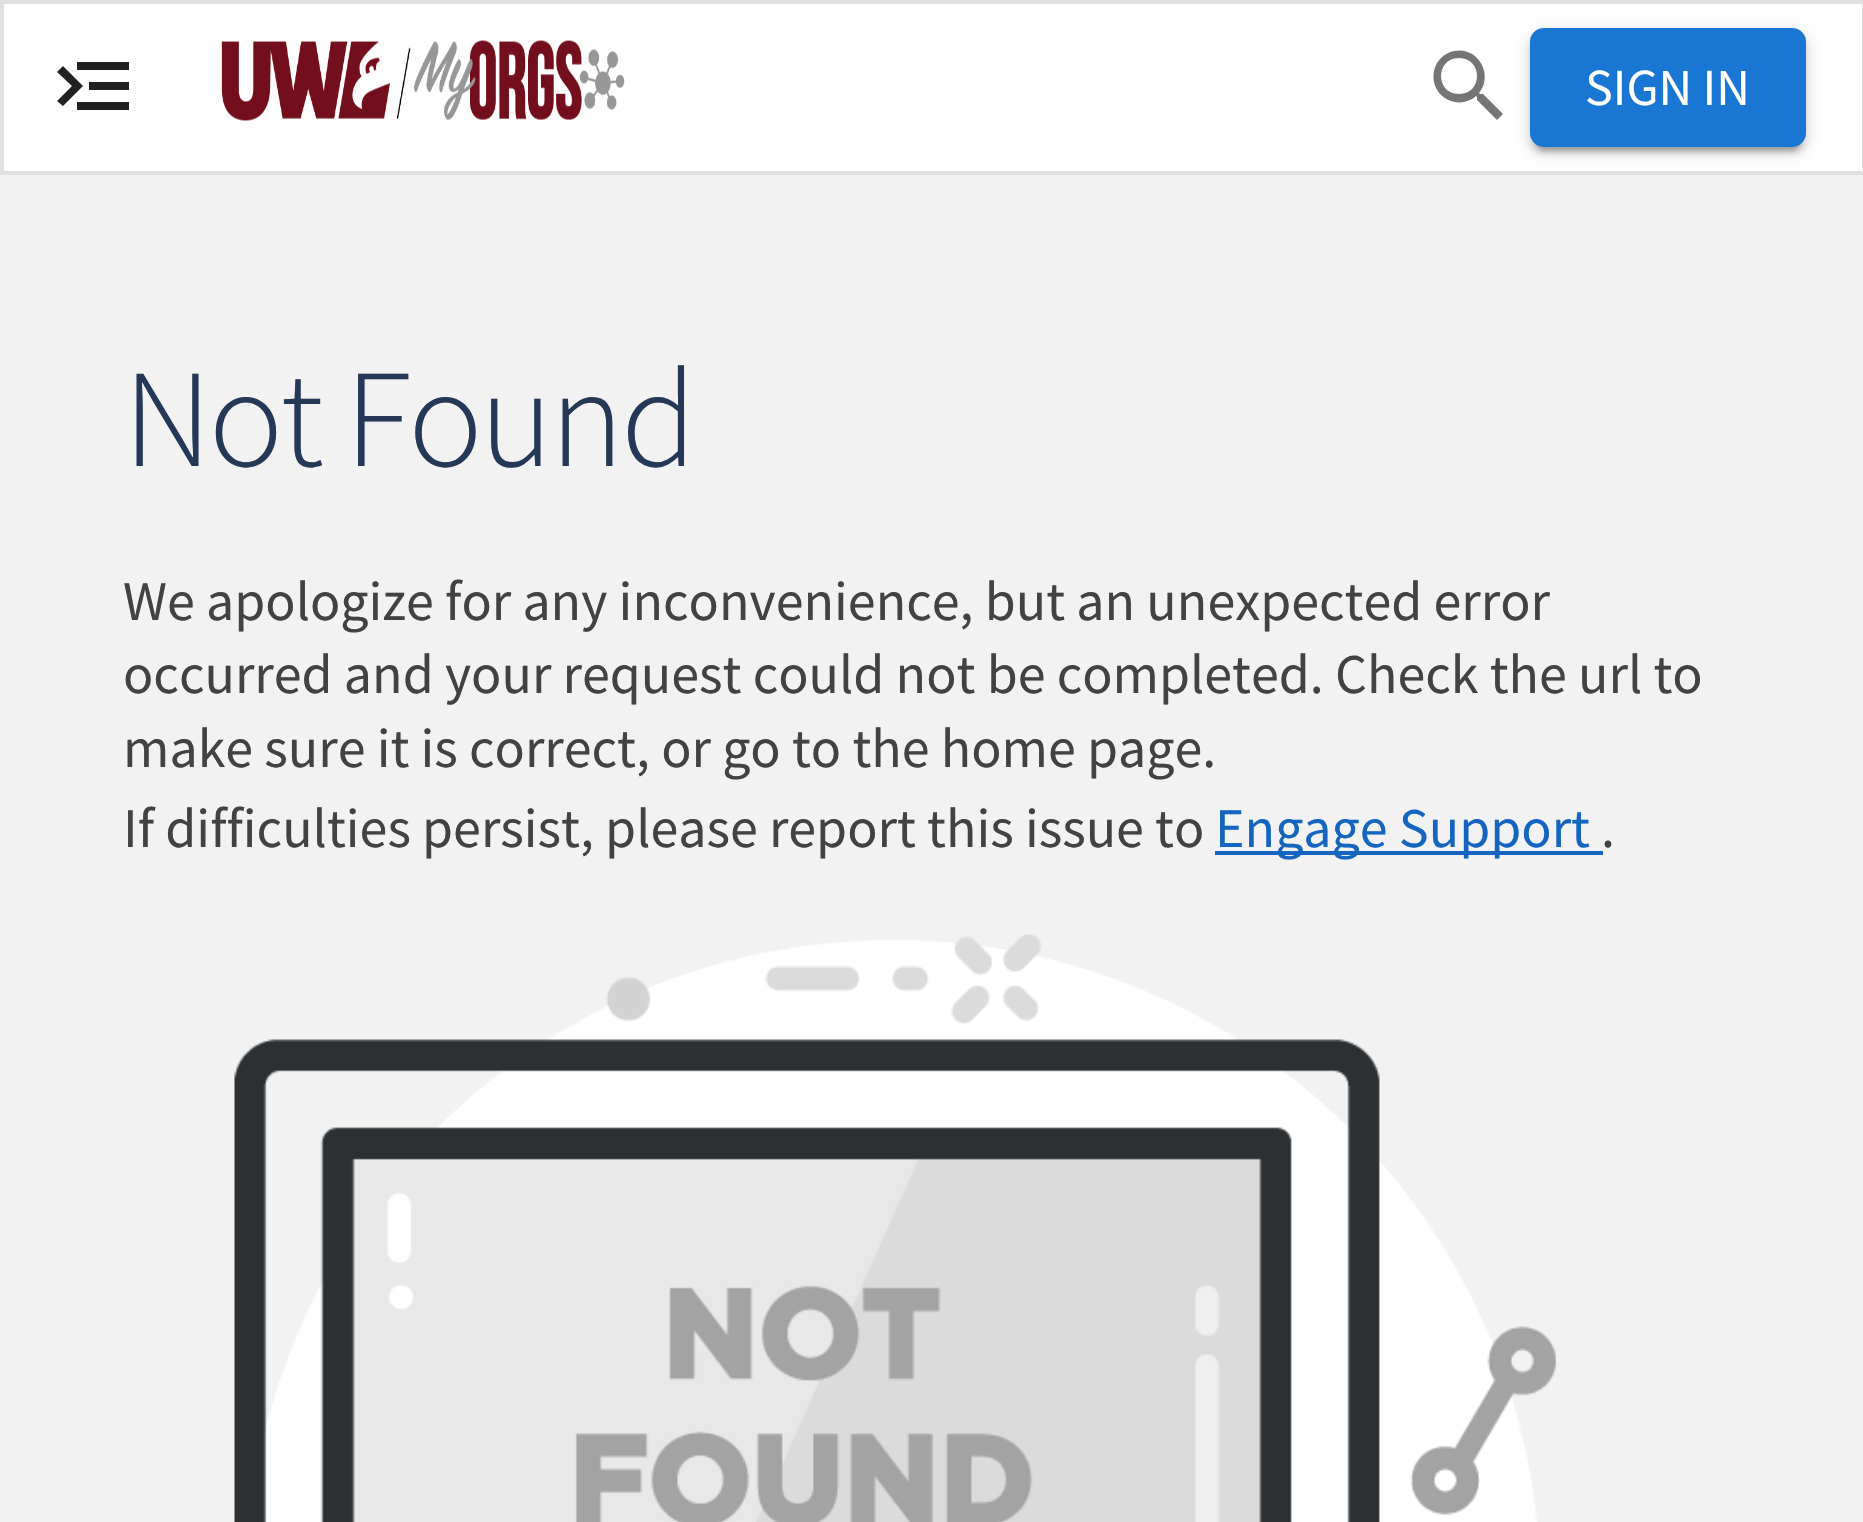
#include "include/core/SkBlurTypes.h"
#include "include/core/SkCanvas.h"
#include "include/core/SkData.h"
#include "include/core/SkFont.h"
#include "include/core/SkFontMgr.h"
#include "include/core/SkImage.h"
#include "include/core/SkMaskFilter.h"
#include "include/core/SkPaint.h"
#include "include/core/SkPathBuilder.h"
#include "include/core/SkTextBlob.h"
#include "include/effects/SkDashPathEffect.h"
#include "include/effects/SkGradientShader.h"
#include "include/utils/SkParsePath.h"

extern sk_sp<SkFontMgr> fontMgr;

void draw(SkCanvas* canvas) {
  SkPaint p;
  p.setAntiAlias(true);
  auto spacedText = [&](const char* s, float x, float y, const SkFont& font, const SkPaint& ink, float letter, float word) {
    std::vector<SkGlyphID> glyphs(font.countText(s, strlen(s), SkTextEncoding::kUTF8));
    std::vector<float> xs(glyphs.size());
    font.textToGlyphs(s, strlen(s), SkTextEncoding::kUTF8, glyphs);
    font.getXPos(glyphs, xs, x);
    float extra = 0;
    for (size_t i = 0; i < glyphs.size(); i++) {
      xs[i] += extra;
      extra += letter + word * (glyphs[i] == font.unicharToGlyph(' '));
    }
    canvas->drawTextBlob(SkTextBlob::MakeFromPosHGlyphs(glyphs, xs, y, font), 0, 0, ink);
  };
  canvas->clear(SkColorSetRGB(242, 242, 242));
  p.setColor(SK_ColorWHITE);
  canvas->drawRect(SkRect::MakeLTRB(2, 2, 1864, 173), p);
  p.setStyle(SkPaint::kStroke_Style);
  p.setStrokeWidth(4);
  p.setColor(SkColorSetRGB(224, 224, 224));
  canvas->drawRect(SkRect::MakeLTRB(2, 2, 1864, 173), p);
  p.setStyle(SkPaint::kFill_Style);
  p.setColor(SkColorSetRGB(33, 33, 33));
  canvas->drawPath(SkPathBuilder().moveTo(129, 110).lineTo(77, 110).lineTo(77, 102).lineTo(129, 102).close().moveTo(129, 90).lineTo(89, 90).lineTo(89, 82).lineTo(129, 82).close().moveTo(129, 62).lineTo(129, 70).lineTo(77, 70).lineTo(77, 62).close().moveTo(57, 101).lineTo(72, 86).lineTo(57, 72).lineTo(63, 66).lineTo(83, 86).lineTo(63, 106).close().detach(), p);
  canvas->drawImageRect(SkImages::DeferredFromEncodedData(SkData::MakeFromFileName("images/1.png")), SkRect::MakeLTRB(221, 40, 625, 121), SkSamplingOptions());
  p.setColor(SkColorSetRGB(117, 117, 117));
  canvas->drawPath(SkPathBuilder().moveTo(1483, 94).lineTo(1480, 94).lineTo(1479, 93).cubicTo(1494, 75, 1478, 46, 1454, 51).cubicTo(1449, 52, 1444, 55, 1441, 58).cubicTo(1437, 62, 1435, 66, 1434, 71).cubicTo(1429, 96, 1458, 112, 1476, 96).lineTo(1477, 97).lineTo(1477, 100).lineTo(1497, 120).lineTo(1503, 114).close().moveTo(1459, 94).cubicTo(1435, 94, 1435, 58, 1459, 58).cubicTo(1483, 58, 1483, 94, 1459, 94).close().detach(), p);
  p.setColor(SkColorSetARGB(31, 0, 0, 0));
  p.setMaskFilter(SkMaskFilter::MakeBlur(kNormal_SkBlurStyle, 9));
  canvas->drawRoundRect(SkRect::MakeLTRB(1530, 32, 1806, 151), 14, 14, p);
  p.setMaskFilter(nullptr);
  p.setColor(SkColorSetARGB(36, 0, 0, 0));
  p.setMaskFilter(SkMaskFilter::MakeBlur(kNormal_SkBlurStyle, 3.5f));
  canvas->drawRoundRect(SkRect::MakeLTRB(1530, 35, 1806, 154), 14, 14, p);
  p.setMaskFilter(nullptr);
  p.setColor(SkColorSetARGB(51, 0, 0, 0));
  p.setMaskFilter(SkMaskFilter::MakeBlur(kNormal_SkBlurStyle, 2));
  canvas->drawRoundRect(SkRect::MakeLTRB(1537, 46, 1799, 151), 7, 7, p);
  p.setMaskFilter(nullptr);
  p.setColor(SkColorSetRGB(25, 118, 210));
  canvas->drawRoundRect(SkRect::MakeLTRB(1530, 28, 1806, 147), 14, 14, p);
  p.setColor(SkColorSetRGB(21, 101, 192));
  canvas->drawRect(SkRect::MakeLTRB(1215, 851, 1603, 855), p);
  canvas->drawImageRect(SkImages::DeferredFromEncodedData(SkData::MakeFromFileName("images/2.png")), SkRect::MakeLTRB(234, 934, 1557, 1522), SkSamplingOptions());
  SkFont font1(fontMgr->matchFamilyStyle("Source Sans Pro", SkFontStyle::Normal()), 52);
  font1.setSubpixel(true);
  p.setColor(SK_ColorWHITE);
  canvas->drawString("SIGN IN", 1585, 105, font1, p);
  SkFont font2(fontMgr->matchFamilyStyle("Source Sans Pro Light", SkFontStyle(300, SkFontStyle::kNormal_Width, SkFontStyle::kUpright_Slant)), 140);
  font2.setSubpixel(true);
  p.setColor(SkColorSetRGB(37, 56, 88));
  spacedText("Not Found", 123, 466, font2, p, -3.5f, 0);
  SkFont font3(fontMgr->matchFamilyStyle("Source Sans Pro", SkFontStyle::Normal()), 56);
  font3.setSubpixel(true);
  p.setColor(SkColorSetRGB(66, 66, 66));
  canvas->drawString("We apologize for any inconvenience, but an unexpected error", 123, 620, font3, p);
  canvas->drawString("occurred and your request could not be completed. Check the url to", 123, 693, font3, p);
  canvas->drawString("make sure it is correct, or go to the home page.", 123, 767, font3, p);
  canvas->drawString("If difficulties persist, please report this issue to", 123, 847, font3, p);
  p.setColor(SkColorSetRGB(21, 101, 192));
  canvas->drawString("Engage Support", 1215, 847, font3, p);
  p.setColor(SkColorSetRGB(66, 66, 66));
  canvas->drawString(".", 1601, 847, font3, p);
}
